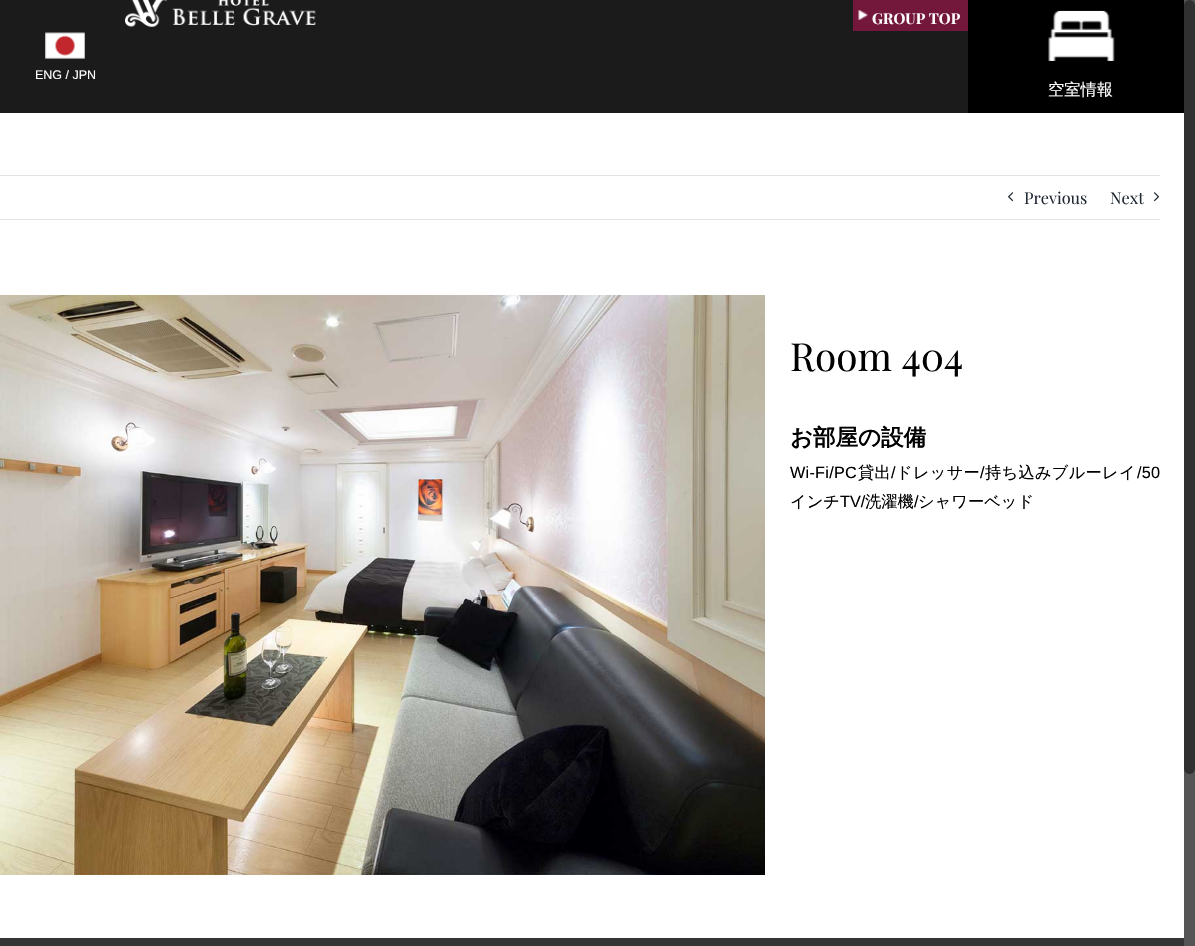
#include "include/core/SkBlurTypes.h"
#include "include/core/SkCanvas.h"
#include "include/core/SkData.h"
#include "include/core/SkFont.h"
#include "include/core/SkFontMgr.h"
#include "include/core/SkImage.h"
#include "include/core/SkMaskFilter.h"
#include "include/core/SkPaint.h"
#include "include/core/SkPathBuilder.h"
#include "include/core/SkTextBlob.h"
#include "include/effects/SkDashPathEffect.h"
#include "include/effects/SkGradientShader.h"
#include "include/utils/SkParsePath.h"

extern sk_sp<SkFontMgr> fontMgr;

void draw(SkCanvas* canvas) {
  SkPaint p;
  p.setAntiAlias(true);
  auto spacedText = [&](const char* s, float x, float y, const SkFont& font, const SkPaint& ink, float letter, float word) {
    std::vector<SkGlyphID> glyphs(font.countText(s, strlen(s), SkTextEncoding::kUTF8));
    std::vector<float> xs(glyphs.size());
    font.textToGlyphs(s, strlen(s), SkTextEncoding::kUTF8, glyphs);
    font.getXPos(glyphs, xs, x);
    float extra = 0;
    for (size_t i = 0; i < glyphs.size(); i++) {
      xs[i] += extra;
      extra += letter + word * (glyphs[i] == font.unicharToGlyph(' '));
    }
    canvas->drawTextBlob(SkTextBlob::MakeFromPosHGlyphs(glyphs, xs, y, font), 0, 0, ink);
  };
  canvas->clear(SK_ColorWHITE);
  p.setColor(SkColorSetRGB(27, 27, 27));
  canvas->drawRect(SkRect::MakeLTRB(0, 0, 968, 113), p);
  canvas->drawImageRect(SkImages::DeferredFromEncodedData(SkData::MakeFromFileName("images/1.png")), SkRect::MakeLTRB(125, 0, 316, 27), SkSamplingOptions());
  p.setColor(SkColorSetRGB(115, 24, 58));
  canvas->drawRect(SkRect::MakeLTRB(853, 0, 968, 31), p);
  canvas->drawImageRect(SkImages::DeferredFromEncodedData(SkData::MakeFromFileName("images/2.png")), SkRect::MakeLTRB(858, 10, 868, 20), SkSamplingOptions());
  canvas->drawImageRect(SkImages::DeferredFromEncodedData(SkData::MakeFromFileName("images/3.png")), SkRect::MakeLTRB(45, 32, 85, 59), SkSamplingOptions());
  p.setColor(SK_ColorBLACK);
  canvas->drawRect(SkRect::MakeLTRB(968, 0, 1184, 113), p);
  canvas->drawImageRect(SkImages::DeferredFromEncodedData(SkData::MakeFromFileName("images/4.png")), SkRect::MakeLTRB(1048, 10, 1115, 61), SkSamplingOptions());
  p.setColor(SkColorSetRGB(226, 226, 226));
  canvas->drawRect(SkRect::MakeLTRB(0, 175, 1160, 176), p);
  canvas->drawRect(SkRect::MakeLTRB(0, 219, 1160, 220), p);
  canvas->drawImageRect(SkImages::DeferredFromEncodedData(SkData::MakeFromFileName("images/5.png")), SkRect::MakeLTRB(1008, 192, 1014, 202), SkSamplingOptions());
  canvas->drawImageRect(SkImages::DeferredFromEncodedData(SkData::MakeFromFileName("images/6.png")), SkRect::MakeLTRB(1153, 192, 1160, 202), SkSamplingOptions());
  canvas->drawImageRect(SkImages::DeferredFromEncodedData(SkData::MakeFromFileName("images/7.png")), SkRect::MakeLTRB(0, 295, 765, 875), SkSamplingOptions());
  p.setColor(SkColorSetRGB(53, 53, 53));
  canvas->drawRect(SkRect::MakeLTRB(0, 938, 1184, 946), p);
  p.setColor(SkColorSetRGB(85, 85, 85));
  canvas->drawRect(SkRect::MakeLTRB(1184, 0, 1195, 946), p);
  p.setColor(SkColorSetRGB(48, 48, 48));
  canvas->drawRoundRect(SkRect::MakeLTRB(1184, 0, 1195, 774), 5.5f, 5.5f, p);
  SkFont font1(fontMgr->matchFamilyStyle("Playfair Display", SkFontStyle::Bold()), 15);
  font1.setSubpixel(true);
  p.setColor(SK_ColorWHITE);
  canvas->drawString("GROUP TOP", 872, 24, font1, p);
  SkFont font2(fontMgr->matchFamilyStyle("Liberation Sans", SkFontStyle::Normal()), 12.5f);
  font2.setSubpixel(true);
  canvas->drawString("ENG / JPN", 35, 79, font2, p);
  SkFont font3(fontMgr->matchFamilyStyle("WenQuanYi Zen Hei", SkFontStyle(500, SkFontStyle::kNormal_Width, SkFontStyle::kUpright_Slant)), 16.25f);
  font3.setSubpixel(true);
  canvas->drawString("空室情報", 1048, 95, font3, p);
  SkFont font4(fontMgr->matchFamilyStyle("Playfair Display", SkFontStyle::Normal()), 16.25f);
  font4.setSubpixel(true);
  p.setColor(SkColorSetRGB(33, 41, 52));
  canvas->drawString("Previous", 1024, 204, font4, p);
  canvas->drawString("Next", 1110, 204, font4, p);
  SkFont font5(fontMgr->matchFamilyStyle("Playfair Display", SkFontStyle::Normal()), 38.75f);
  font5.setSubpixel(true);
  p.setColor(SK_ColorBLACK);
  canvas->drawString("Room 404", 790, 371, font5, p);
  SkFont font6(fontMgr->matchFamilyStyle("WenQuanYi Zen Hei", SkFontStyle::Bold()), 22.5f);
  font6.setSubpixel(true);
  canvas->drawString("お部屋の設備", 790, 445, font6, p);
  SkFont font7(fontMgr->matchFamilyStyle("Liberation Sans", SkFontStyle::Normal()), 16.25f);
  font7.setSubpixel(true);
  spacedText("Wi-Fi/PC", 790, 478, font7, p, 0.25f, 0);
  spacedText("貸出", 858, 478, font3, p, 0.25f, 0);
  spacedText("/", 891, 478, font7, p, 0.25f, 0);
  spacedText("ドレッサー", 896, 478, font3, p, 0.25f, 0);
  spacedText("/", 980, 478, font7, p, 0.25f, 0);
  spacedText("持ち込みブルーレイ", 985, 478, font3, p, 0.25f, 0);
  spacedText("/50", 1137, 478, font7, p, 0.25f, 0);
  canvas->drawString("インチ", 790, 507, font3, p);
  canvas->drawString("TV/", 840, 507, font7, p);
  canvas->drawString("洗濯機", 865, 507, font3, p);
  canvas->drawString("/", 914, 507, font7, p);
  canvas->drawString("シャワーベッド", 918, 507, font3, p);
}
